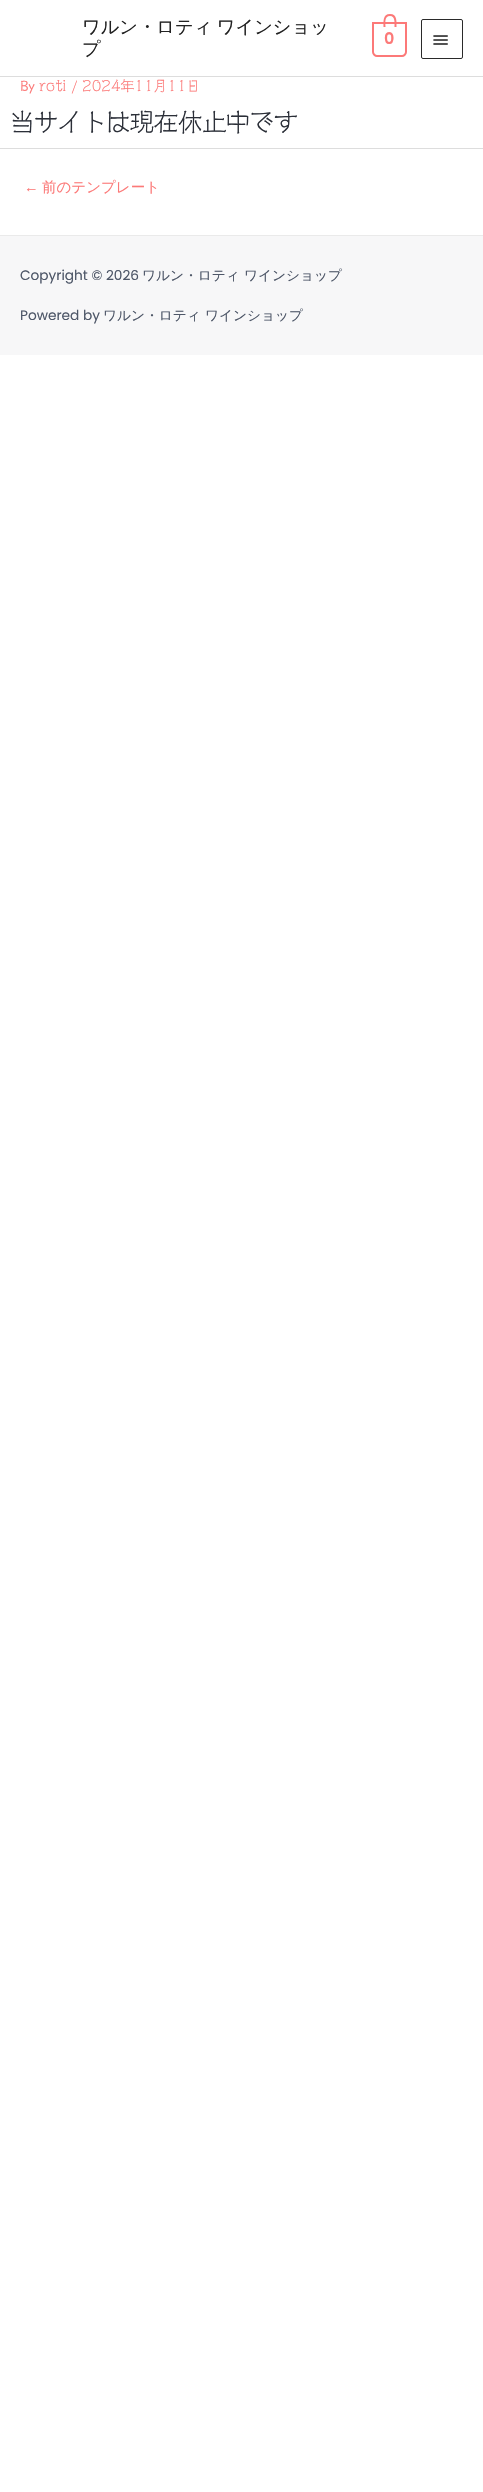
#include "include/core/SkBlurTypes.h"
#include "include/core/SkCanvas.h"
#include "include/core/SkData.h"
#include "include/core/SkFont.h"
#include "include/core/SkFontMgr.h"
#include "include/core/SkImage.h"
#include "include/core/SkMaskFilter.h"
#include "include/core/SkPaint.h"
#include "include/core/SkPathBuilder.h"
#include "include/core/SkTextBlob.h"
#include "include/effects/SkDashPathEffect.h"
#include "include/effects/SkGradientShader.h"
#include "include/utils/SkParsePath.h"

extern sk_sp<SkFontMgr> fontMgr;

void draw(SkCanvas* canvas) {
  SkPaint p;
  p.setAntiAlias(true);
  auto spacedText = [&](const char* s, float x, float y, const SkFont& font, const SkPaint& ink, float letter, float word) {
    std::vector<SkGlyphID> glyphs(font.countText(s, strlen(s), SkTextEncoding::kUTF8));
    std::vector<float> xs(glyphs.size());
    font.textToGlyphs(s, strlen(s), SkTextEncoding::kUTF8, glyphs);
    font.getXPos(glyphs, xs, x);
    float extra = 0;
    for (size_t i = 0; i < glyphs.size(); i++) {
      xs[i] += extra;
      extra += letter + word * (glyphs[i] == font.unicharToGlyph(' '));
    }
    canvas->drawTextBlob(SkTextBlob::MakeFromPosHGlyphs(glyphs, xs, y, font), 0, 0, ink);
  };
  canvas->clear(SK_ColorWHITE);
  p.setColor(SkColorSetRGB(221, 221, 221));
  canvas->drawRect(SkRect::MakeLTRB(0, 76, 483, 77), p);
  p.setStyle(SkPaint::kStroke_Style);
  p.setStrokeWidth(2);
  p.setColor(SkColorSetRGB(252, 121, 120));
  canvas->drawPath(SkPathBuilder().moveTo(373, 23).lineTo(406, 23).lineTo(406, 52).cubicTo(406, 54, 404, 56, 402, 56).lineTo(377, 56).cubicTo(375, 56, 373, 54, 373, 52).close().detach(), p);
  p.setStyle(SkPaint::kFill_Style);
  canvas->drawPath(SkPathBuilder(SkPathFillType::kEvenOdd).moveTo(390, 14).cubicTo(397.5f, 14, 396.5f, 22, 396.5f, 27).lineTo(383.5f, 27).cubicTo(383.5f, 22, 382.5f, 14, 390, 14).close().moveTo(390, 16).cubicTo(395.5f, 16, 394.5f, 23.5f, 394.5f, 27).lineTo(385.5f, 27).cubicTo(385.5f, 23.5f, 384, 16, 390, 16).close().detach(), p);
  p.setStyle(SkPaint::kStroke_Style);
  p.setStrokeWidth(1);
  p.setColor(SkColorSetRGB(42, 42, 42));
  canvas->drawRoundRect(SkRect::MakeLTRB(421.5f, 19.5f, 462.5f, 58.5f), 1.5f, 1.5f, p);
  canvas->drawImageRect(SkImages::DeferredFromEncodedData(SkData::MakeFromFileName("images/1.png")), SkRect::MakeLTRB(433, 35, 448, 45), SkSamplingOptions());
  p.setStyle(SkPaint::kFill_Style);
  p.setColor(SkColorSetRGB(221, 221, 221));
  canvas->drawRect(SkRect::MakeLTRB(0, 148, 483, 149), p);
  p.setColor(SkColorSetRGB(234, 234, 234));
  canvas->drawRect(SkRect::MakeLTRB(0, 235, 483, 236), p);
  p.setColor(SkColorSetRGB(247, 247, 248));
  canvas->drawRect(SkRect::MakeLTRB(0, 236, 483, 355), p);
  SkFont font1(fontMgr->matchFamilyStyle("WenQuanYi Zen Hei", SkFontStyle(500, SkFontStyle::kNormal_Width, SkFontStyle::kUpright_Slant)), 18.25f);
  font1.setSubpixel(true);
  p.setColor(SkColorSetRGB(34, 34, 34));
  spacedText("ワルン・ロティ ワインショッ", 82, 33, font1, p, 0, -1);
  canvas->drawString("プ", 82, 55, font1, p);
  SkFont font2(fontMgr->matchFamilyStyle("Poppins", SkFontStyle(600, SkFontStyle::kNormal_Width, SkFontStyle::kUpright_Slant)), 16);
  font2.setSubpixel(true);
  p.setColor(SkColorSetRGB(252, 121, 120));
  canvas->drawString("0", 384, 44, font2, p);
  SkFont font3(fontMgr->matchFamilyStyle("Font", SkFontStyle::Normal()), 13.7f);
  font3.setSubpixel(true);
  canvas->drawString("By", 20, 91, font3, p);
  SkFont font4(fontMgr->matchFamilyStyle("Font", SkFontStyle(300, SkFontStyle::kNormal_Width, SkFontStyle::kUpright_Slant)), 13.7f);
  font4.setSubpixel(true);
  canvas->drawString("roti", 39, 91, font4, p);
  canvas->drawString("/", 71, 91, font3, p);
  canvas->drawString("2024年11月11日", 82, 91, font4, p);
  SkFont font5(fontMgr->matchFamilyStyle("Font", SkFontStyle(300, SkFontStyle::kNormal_Width, SkFontStyle::kUpright_Slant)), 24);
  font5.setSubpixel(true);
  p.setColor(SkColorSetRGB(43, 47, 56));
  canvas->drawString("当サイトは現在休止中です", 10, 131, font5, p);
  SkFont font6(fontMgr->matchFamilyStyle("Liberation Sans", SkFontStyle::Normal()), 14.5f);
  font6.setSubpixel(true);
  p.setColor(SkColorSetRGB(252, 121, 120));
  canvas->drawString("←", 24, 192, font6, p);
  SkFont font7(fontMgr->matchFamilyStyle("WenQuanYi Zen Hei", SkFontStyle(500, SkFontStyle::kNormal_Width, SkFontStyle::kUpright_Slant)), 14.5f);
  font7.setSubpixel(true);
  canvas->drawString("前のテンプレート", 42, 192, font7, p);
  SkFont font8(fontMgr->matchFamilyStyle("Poppins", SkFontStyle::Normal()), 13.7f);
  font8.setSubpixel(true);
  p.setColor(SkColorSetRGB(78, 87, 104));
  canvas->drawString("Copyright © 2026", 20, 280, font8, p);
  SkFont font9(fontMgr->matchFamilyStyle("WenQuanYi Zen Hei", SkFontStyle(500, SkFontStyle::kNormal_Width, SkFontStyle::kUpright_Slant)), 13.7f);
  font9.setSubpixel(true);
  canvas->drawString("ワルン・ロティ ワインショップ", 142, 280, font9, p);
  canvas->drawString("Powered by", 20, 320, font8, p);
  canvas->drawString("ワルン・ロティ ワインショップ", 103, 320, font9, p);
}
